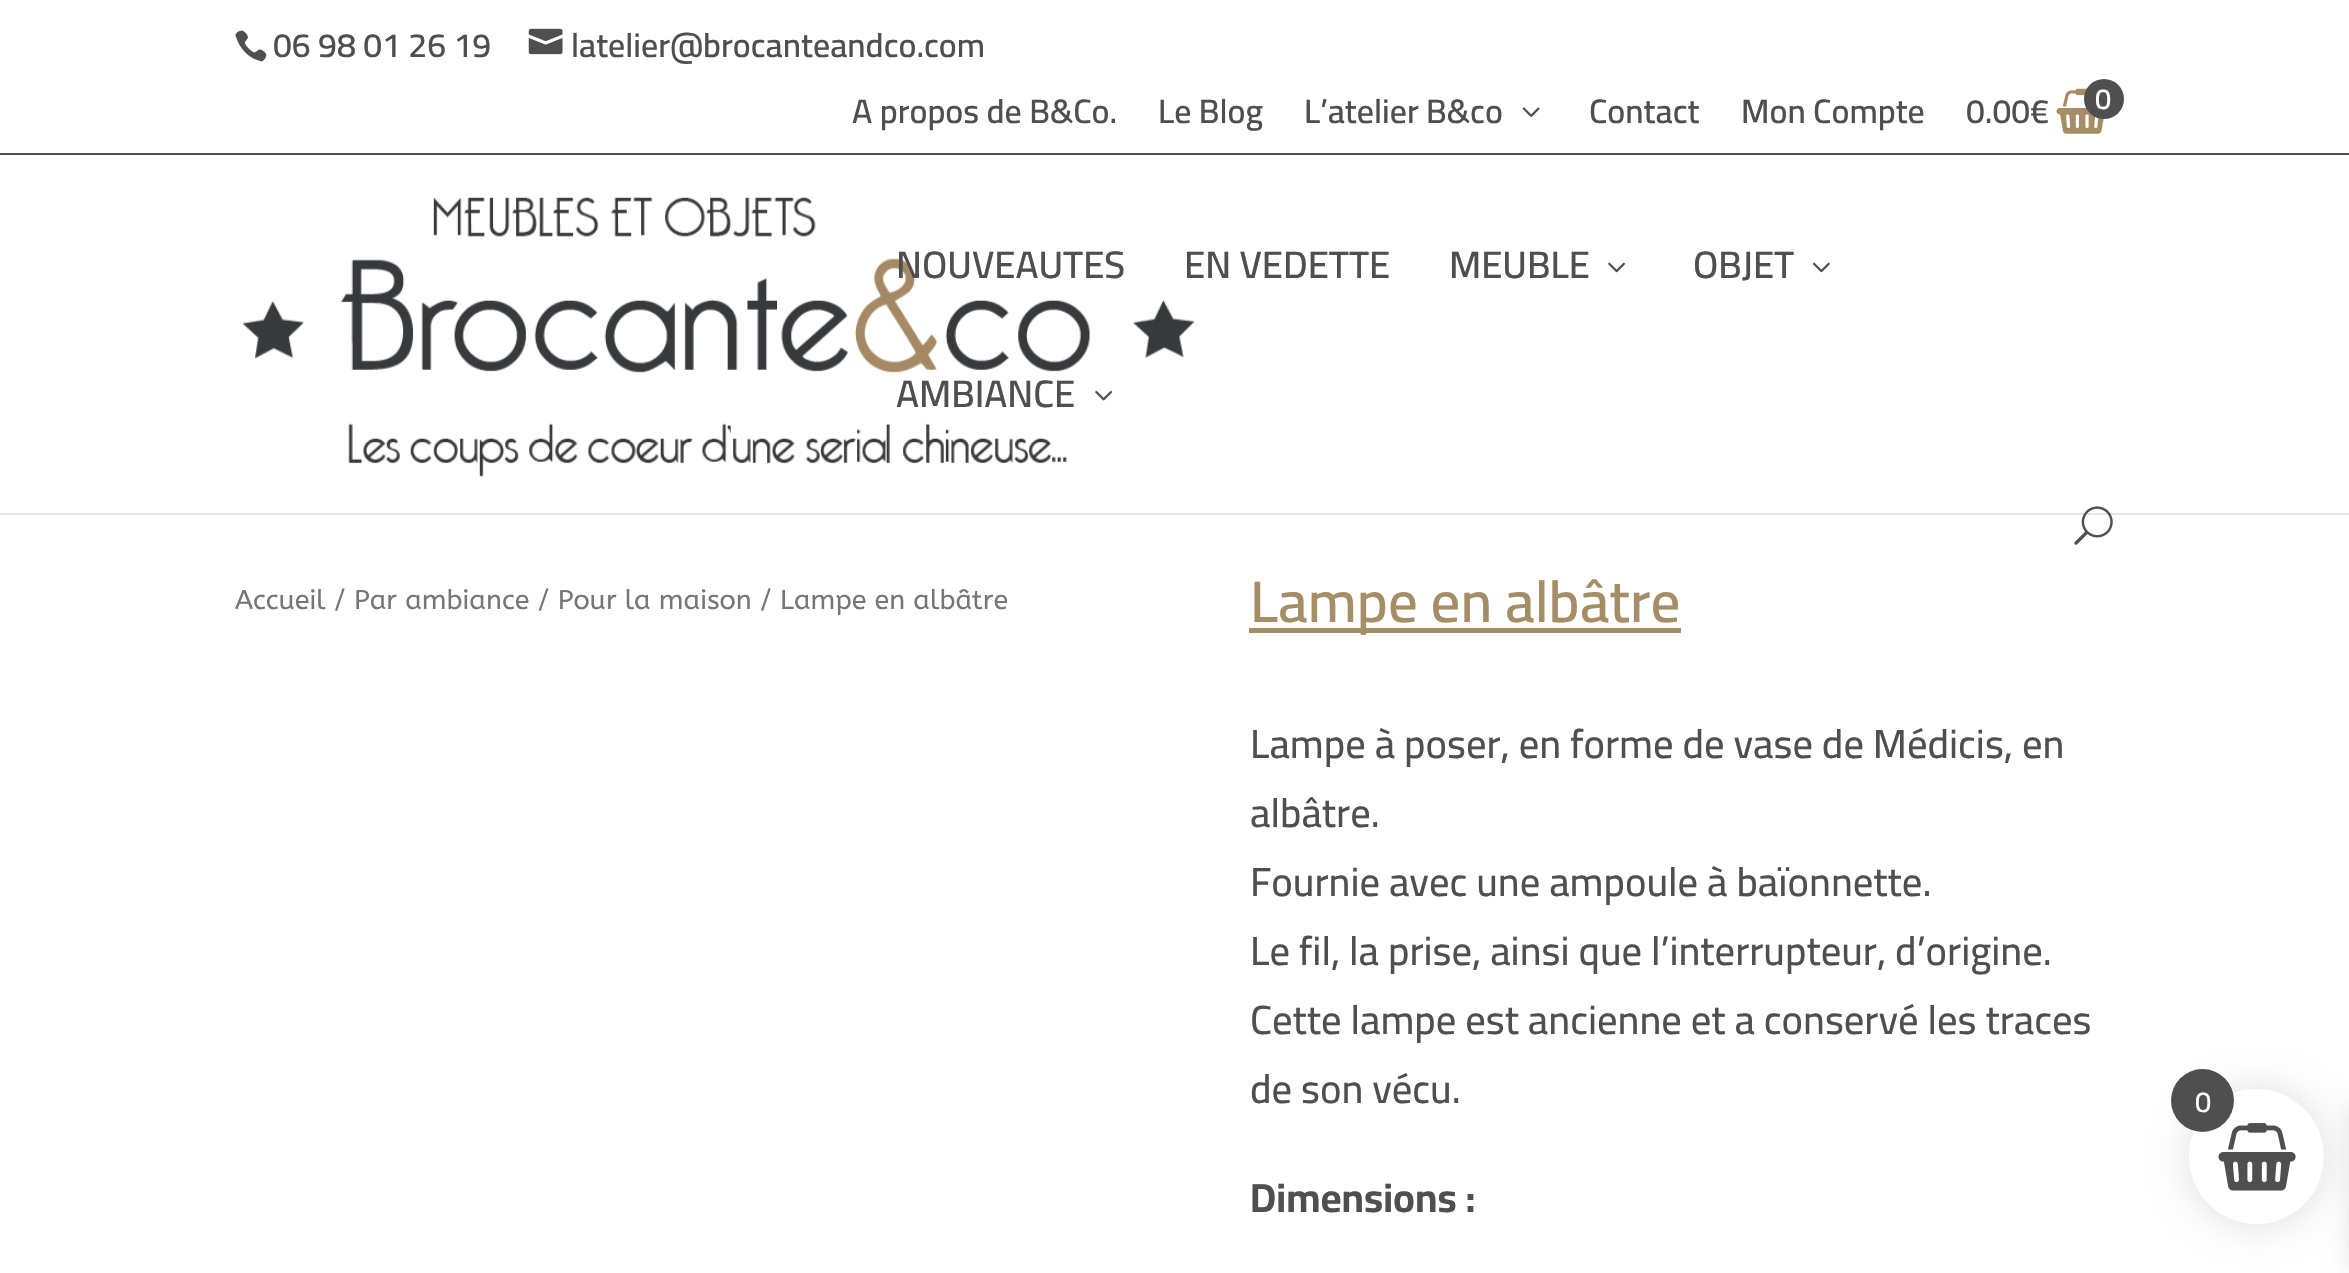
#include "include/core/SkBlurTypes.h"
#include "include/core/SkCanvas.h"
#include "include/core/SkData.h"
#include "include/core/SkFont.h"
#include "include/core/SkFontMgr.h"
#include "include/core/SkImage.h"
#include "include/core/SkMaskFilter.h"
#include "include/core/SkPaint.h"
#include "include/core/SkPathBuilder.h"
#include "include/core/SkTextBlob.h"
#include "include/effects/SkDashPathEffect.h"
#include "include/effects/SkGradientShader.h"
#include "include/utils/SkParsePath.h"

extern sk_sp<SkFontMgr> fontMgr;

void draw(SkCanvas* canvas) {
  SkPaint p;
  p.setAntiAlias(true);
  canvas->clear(SK_ColorWHITE);
  p.setColor(SkColorSetRGB(79, 79, 79));
  canvas->drawRect(SkRect::MakeLTRB(0, 153, 2349, 155), p);
  canvas->drawImageRect(SkImages::DeferredFromEncodedData(SkData::MakeFromFileName("images/1.png")), SkRect::MakeLTRB(235, 30, 267, 62), SkSamplingOptions());
  canvas->drawImageRect(SkImages::DeferredFromEncodedData(SkData::MakeFromFileName("images/2.png")), SkRect::MakeLTRB(528, 28, 563, 55), SkSamplingOptions());
  canvas->drawImageRect(SkImages::DeferredFromEncodedData(SkData::MakeFromFileName("images/3.png")), SkRect::MakeLTRB(1522, 107, 1540, 117), SkSamplingOptions());
  canvas->drawImageRect(SkImages::DeferredFromEncodedData(SkData::MakeFromFileName("images/4.png")), SkRect::MakeLTRB(2056, 88, 2104, 134), SkSamplingOptions());
  canvas->drawCircle(2104, 99, 20, p);
  p.setColor(SkColorSetRGB(230, 230, 230));
  canvas->drawRect(SkRect::MakeLTRB(0, 513, 2349, 515), p);
  canvas->drawImageRect(SkImages::DeferredFromEncodedData(SkData::MakeFromFileName("images/5.png")), SkRect::MakeLTRB(243, 197, 1195, 477), SkSamplingOptions());
  canvas->drawImageRect(SkImages::DeferredFromEncodedData(SkData::MakeFromFileName("images/6.png")), SkRect::MakeLTRB(1608, 262, 1625, 273), SkSamplingOptions());
  canvas->drawImageRect(SkImages::DeferredFromEncodedData(SkData::MakeFromFileName("images/7.png")), SkRect::MakeLTRB(1813, 262, 1830, 273), SkSamplingOptions());
  canvas->drawImageRect(SkImages::DeferredFromEncodedData(SkData::MakeFromFileName("images/8.png")), SkRect::MakeLTRB(1095, 391, 1112, 401), SkSamplingOptions());
  canvas->drawImageRect(SkImages::DeferredFromEncodedData(SkData::MakeFromFileName("images/9.png")), SkRect::MakeLTRB(2074, 506, 2113, 545), SkSamplingOptions());
  p.setColor(SkColorSetRGB(165, 141, 102));
  canvas->drawRect(SkRect::MakeLTRB(1249, 628, 1681, 633), p);
  p.setColor(SkColorSetARGB(26, 0, 0, 0));
  p.setMaskFilter(SkMaskFilter::MakeBlur(kNormal_SkBlurStyle, 17));
  canvas->drawRoundRect(SkRect::MakeLTRB(2185, 1085, 2329, 1229), 72, 72, p);
  p.setMaskFilter(nullptr);
  p.setMaskFilter(SkMaskFilter::MakeBlur(kNormal_SkBlurStyle, 11));
  canvas->drawRect(SkRect::MakeLTRB(2349, 1103, 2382, 1271), p);
  p.setMaskFilter(nullptr);
  p.setColor(SK_ColorWHITE);
  canvas->drawCircle(2256.5f, 1156.5f, 67.5f, p);
  canvas->drawImageRect(SkImages::DeferredFromEncodedData(SkData::MakeFromFileName("images/10.png")), SkRect::MakeLTRB(2218, 1123, 2296, 1191), SkSamplingOptions());
  p.setColor(SkColorSetRGB(79, 79, 79));
  canvas->drawCircle(2202.5f, 1100.5f, 31.5f, p);
  SkFont font1(fontMgr->matchFamilyStyle("Cairo", SkFontStyle(600, SkFontStyle::kNormal_Width, SkFontStyle::kUpright_Slant)), 33.75f);
  font1.setSubpixel(true);
  canvas->drawString("06 98 01 26 19", 273, 57, font1, p);
  canvas->drawString("latelier@brocanteandco.com", 571, 57, font1, p);
  canvas->drawString("A propos de B&Co.", 852, 123, font1, p);
  canvas->drawString("Le Blog", 1158, 123, font1, p);
  canvas->drawString("L’atelier B&co", 1304, 123, font1, p);
  canvas->drawString("Contact", 1589, 123, font1, p);
  canvas->drawString("Mon Compte", 1741, 123, font1, p);
  canvas->drawString("0.00€", 1966, 123, font1, p);
  SkFont font2(fontMgr->matchFamilyStyle("Cairo", SkFontStyle(600, SkFontStyle::kNormal_Width, SkFontStyle::kUpright_Slant)), 29);
  font2.setSubpixel(true);
  p.setColor(SK_ColorWHITE);
  canvas->drawString("0", 2095, 109, font2, p);
  SkFont font3(fontMgr->matchFamilyStyle("Cairo", SkFontStyle(600, SkFontStyle::kNormal_Width, SkFontStyle::kUpright_Slant)), 38.25f);
  font3.setSubpixel(true);
  p.setColor(SkColorSetRGB(79, 79, 79));
  canvas->drawString("NOUVEAUTES", 896, 278, font3, p);
  canvas->drawString("EN VEDETTE", 1184, 278, font3, p);
  canvas->drawString("MEUBLE", 1449, 278, font3, p);
  canvas->drawString("OBJET", 1693, 278, font3, p);
  canvas->drawString("AMBIANCE", 896, 407, font3, p);
  SkFont font4(fontMgr->matchFamilyStyle("ABeeZee", SkFontStyle::Normal()), 27);
  font4.setSubpixel(true);
  p.setColor(SkColorSetRGB(118, 118, 118));
  canvas->drawString("Accueil / Par ambiance / Pour la maison / Lampe en albâtre", 235, 609, font4, p);
  SkFont font5(fontMgr->matchFamilyStyle("Cairo", SkFontStyle(600, SkFontStyle::kNormal_Width, SkFontStyle::kUpright_Slant)), 58.5f);
  font5.setSubpixel(true);
  p.setColor(SkColorSetRGB(165, 141, 102));
  canvas->drawString("Lampe en albâtre", 1250, 622, font5, p);
  SkFont font6(fontMgr->matchFamilyStyle("Cairo", SkFontStyle(500, SkFontStyle::kNormal_Width, SkFontStyle::kUpright_Slant)), 40.5f);
  font6.setSubpixel(true);
  p.setColor(SkColorSetRGB(79, 79, 79));
  canvas->drawString("Lampe à poser, en forme de vase de Médicis, en", 1250, 758, font6, p);
  canvas->drawString("albâtre.", 1250, 827, font6, p);
  canvas->drawString("Fournie avec une ampoule à baïonnette.", 1250, 896, font6, p);
  canvas->drawString("Le fil, la prise, ainsi que l’interrupteur, d’origine.", 1250, 965, font6, p);
  canvas->drawString("Cette lampe est ancienne et a conservé les traces", 1250, 1034, font6, p);
  canvas->drawString("de son vécu.", 1250, 1103, font6, p);
  SkFont font7(fontMgr->matchFamilyStyle("Cairo", SkFontStyle::Bold()), 40.5f);
  font7.setSubpixel(true);
  canvas->drawString("Dimensions :", 1250, 1212, font7, p);
  SkFont font8(fontMgr->matchFamilyStyle("Cairo", SkFontStyle(500, SkFontStyle::kNormal_Width, SkFontStyle::kUpright_Slant)), 29);
  font8.setSubpixel(true);
  p.setColor(SK_ColorWHITE);
  canvas->drawString("0", 2195, 1112, font8, p);
}
